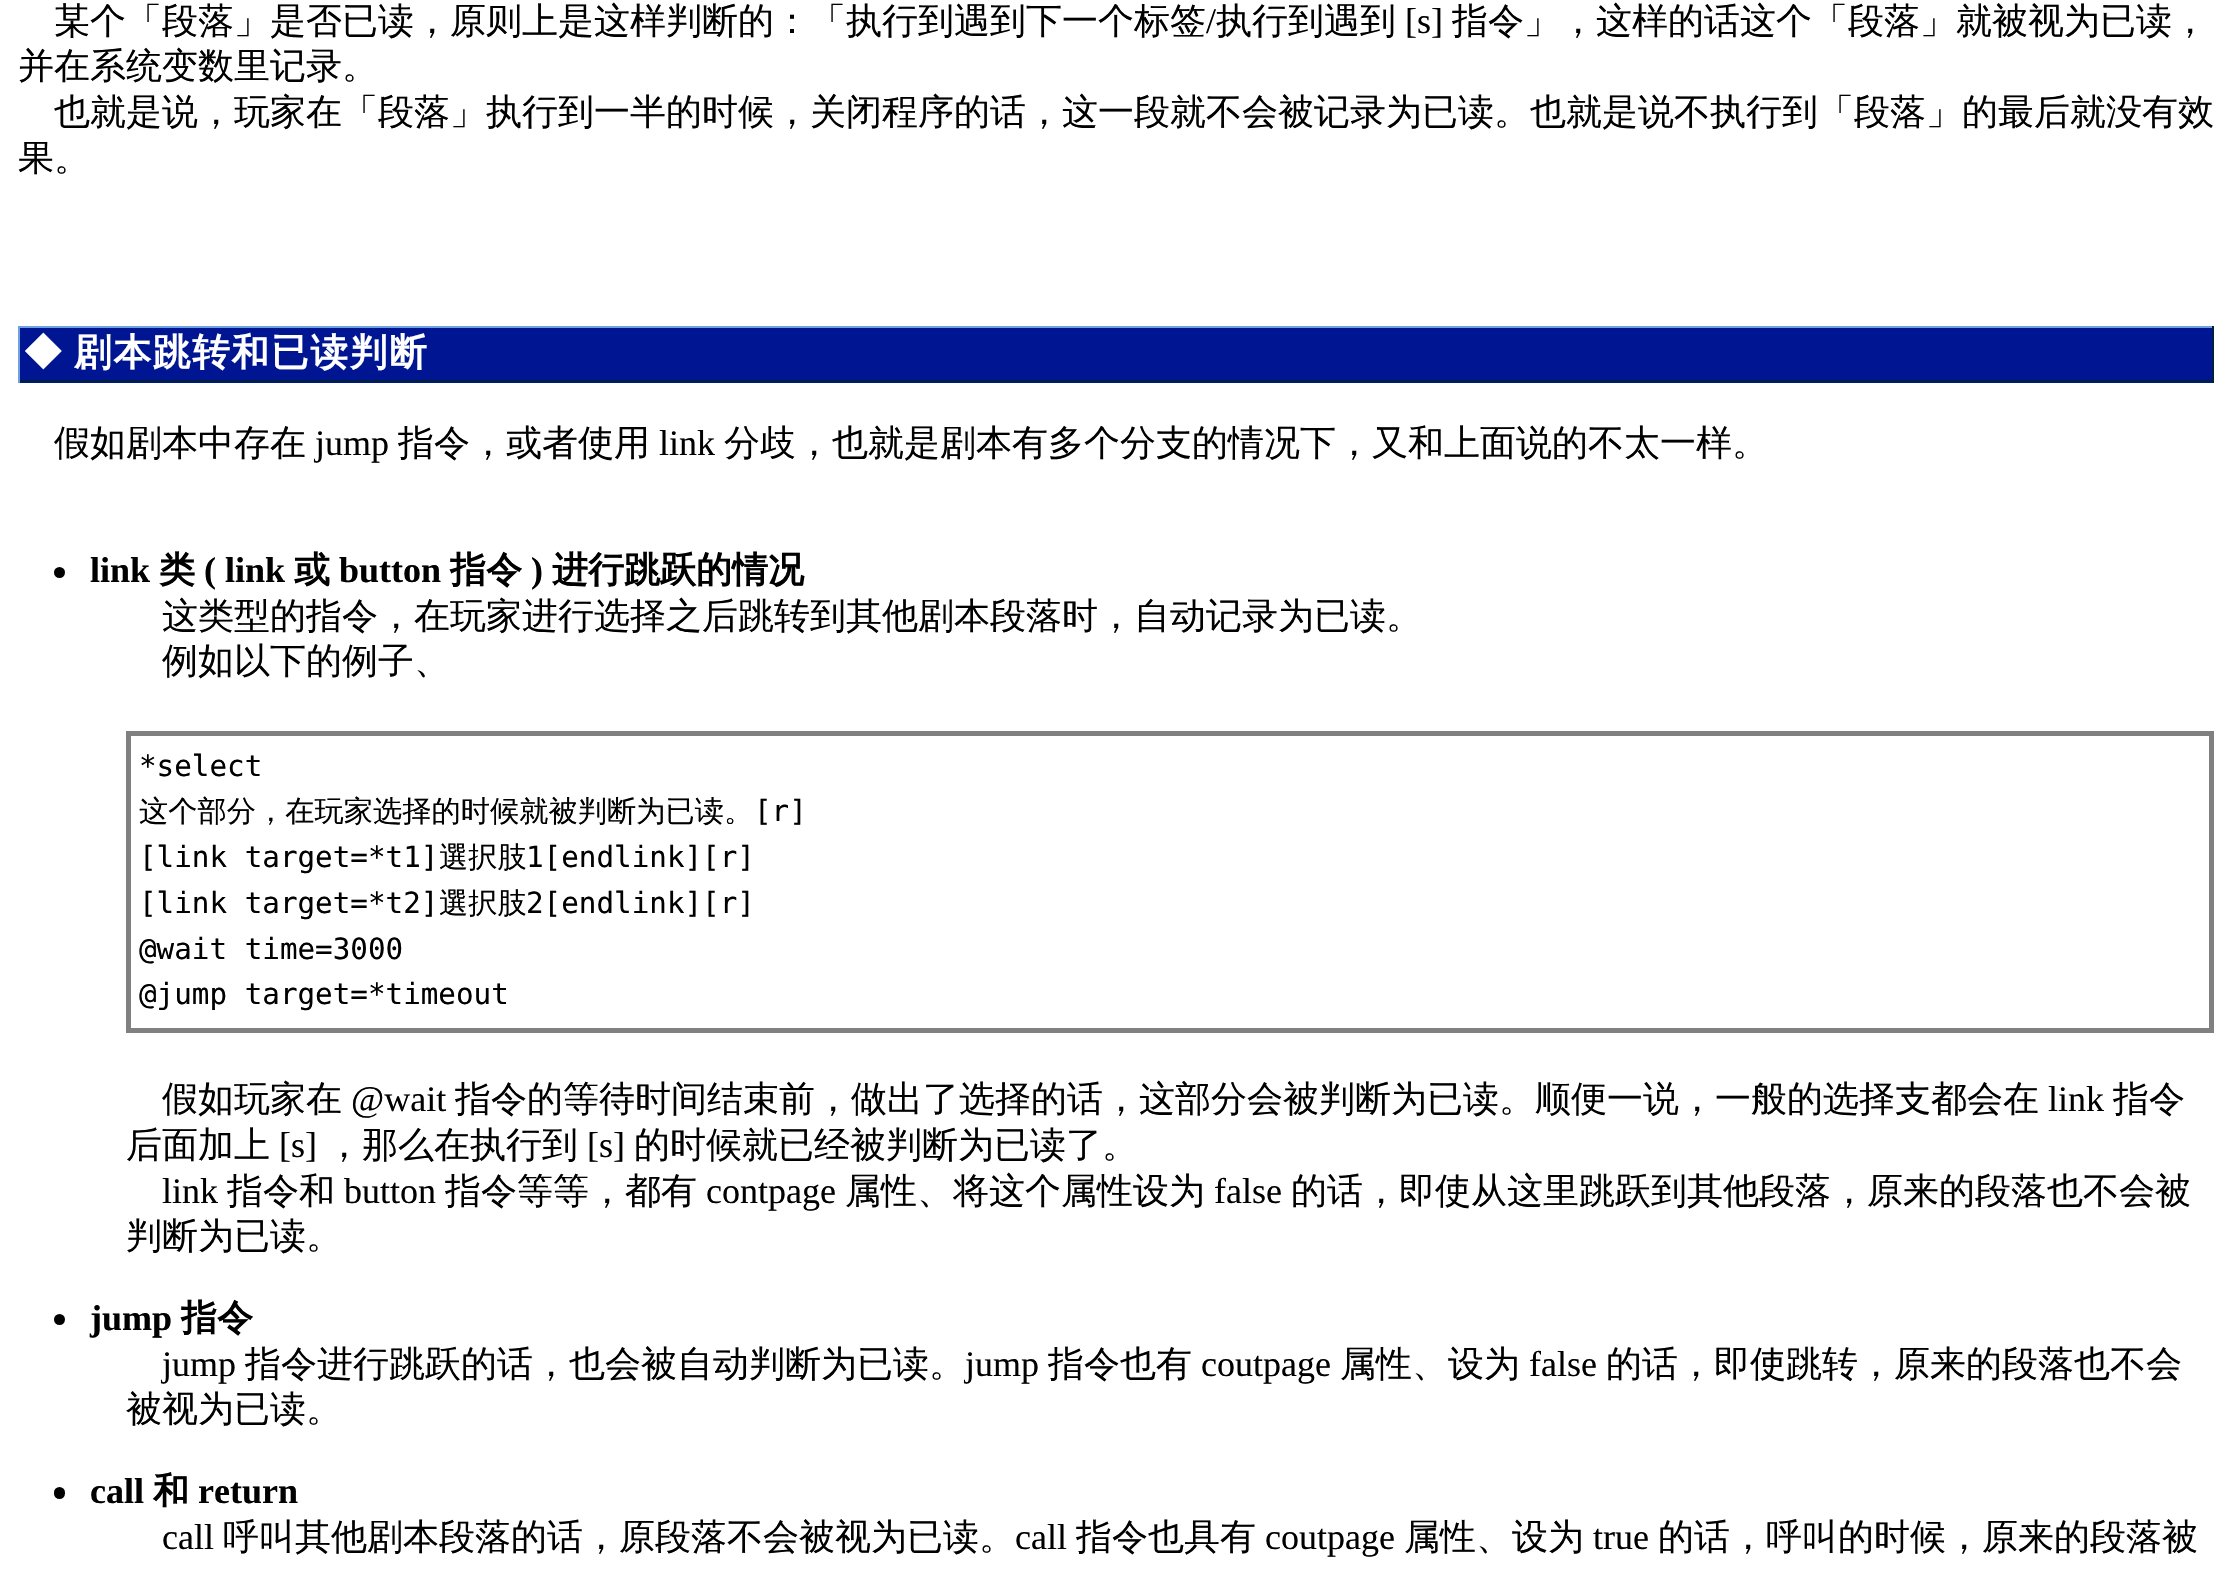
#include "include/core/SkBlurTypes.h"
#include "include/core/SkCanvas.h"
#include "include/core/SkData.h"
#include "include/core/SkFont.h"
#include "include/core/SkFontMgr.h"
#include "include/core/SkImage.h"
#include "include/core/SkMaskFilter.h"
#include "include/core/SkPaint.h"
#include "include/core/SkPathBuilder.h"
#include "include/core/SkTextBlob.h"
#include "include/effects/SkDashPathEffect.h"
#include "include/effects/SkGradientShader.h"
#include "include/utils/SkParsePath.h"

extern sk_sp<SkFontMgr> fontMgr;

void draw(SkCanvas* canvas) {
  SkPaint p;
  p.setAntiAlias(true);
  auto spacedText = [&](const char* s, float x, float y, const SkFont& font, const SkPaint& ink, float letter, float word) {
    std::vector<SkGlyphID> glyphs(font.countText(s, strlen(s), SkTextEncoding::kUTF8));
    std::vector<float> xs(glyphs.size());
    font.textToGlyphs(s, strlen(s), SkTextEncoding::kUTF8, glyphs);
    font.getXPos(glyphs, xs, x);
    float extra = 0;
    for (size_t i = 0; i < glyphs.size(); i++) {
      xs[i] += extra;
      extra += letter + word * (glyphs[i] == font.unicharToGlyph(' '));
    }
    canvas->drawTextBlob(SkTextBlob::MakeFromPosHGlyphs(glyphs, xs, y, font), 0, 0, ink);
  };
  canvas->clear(SK_ColorWHITE);
  p.setColor(SkColorSetRGB(0, 21, 145));
  canvas->drawRect(SkRect::MakeLTRB(20, 328, 2212, 383), p);
  p.setColor(SkColorSetRGB(112, 160, 224));
  canvas->drawRect(SkRect::MakeLTRB(18, 326, 2214, 328), p);
  p.setColor(SkColorSetRGB(0, 32, 64));
  canvas->drawRect(SkRect::MakeLTRB(2212, 326, 2214, 383), p);
  canvas->drawRect(SkRect::MakeLTRB(18, 380, 2214, 382), p);
  p.setColor(SkColorSetRGB(112, 160, 224));
  canvas->drawRect(SkRect::MakeLTRB(18, 326, 20, 383), p);
  p.setColor(SK_ColorBLACK);
  canvas->drawCircle(59.5f, 572.5f, 5.5f, p);
  p.setStyle(SkPaint::kStroke_Style);
  p.setStrokeWidth(5);
  p.setColor(SkColorSetRGB(128, 128, 128));
  canvas->drawRect(SkRect::MakeLTRB(128.5f, 733.5f, 2211.5f, 1030.5f), p);
  p.setStyle(SkPaint::kFill_Style);
  p.setColor(SK_ColorBLACK);
  canvas->drawCircle(59.5f, 1319.5f, 5.5f, p);
  canvas->drawRoundRect(SkRect::MakeLTRB(54, 1487, 65, 1499), 5.5f, 5.5f, p);
  SkFont font1(fontMgr->matchFamilyStyle("WenQuanYi Zen Hei", SkFontStyle(500, SkFontStyle::kNormal_Width, SkFontStyle::kUpright_Slant)), 36);
  font1.setSubpixel(true);
  canvas->drawString("某个「段落」是否已读，原则上是这样判断的：「执行到遇到下一个标签", 54, 33, font1, p);
  SkFont font2(fontMgr->matchFamilyStyle("Liberation Serif", SkFontStyle::Normal()), 36);
  font2.setSubpixel(true);
  canvas->drawString("/", 1206, 33, font2, p);
  canvas->drawString("执行到遇到", 1216, 33, font1, p);
  canvas->drawString("[s]", 1405, 33, font2, p);
  canvas->drawString("指令」，这样的话这个「段落」就被视为已读，", 1452, 33, font1, p);
  canvas->drawString("并在系统变数里记录。", 18, 78, font1, p);
  canvas->drawString("也就是说，玩家在「段落」执行到一半的时候，关闭程序的话，这一段就不会被记录为已读。也就是说不执行到「段落」的最后就没有效", 54, 124, font1, p);
  canvas->drawString("果。", 18, 170, font1, p);
  SkFont font3(fontMgr->matchFamilyStyle("WenQuanYi Zen Hei", SkFontStyle::Bold()), 37.5f);
  font3.setSubpixel(true);
  p.setColor(SK_ColorWHITE);
  spacedText("◆", 24, 365, font3, p, 1.9f, 0);
  spacedText("剧本跳转和已读判断", 74, 365, font3, p, 1.9f, 0);
  p.setColor(SK_ColorBLACK);
  canvas->drawString("假如剧本中存在", 54, 455, font1, p);
  canvas->drawString("jump", 315, 455, font2, p);
  canvas->drawString("指令，或者使用", 398, 455, font1, p);
  canvas->drawString("link", 659, 455, font2, p);
  canvas->drawString("分歧，也就是剧本有多个分支的情况下，又和上面说的不太一样。", 724, 455, font1, p);
  SkFont font4(fontMgr->matchFamilyStyle("Liberation Serif", SkFontStyle::Bold()), 36);
  font4.setSubpixel(true);
  canvas->drawString("link", 90, 582, font4, p);
  SkFont font5(fontMgr->matchFamilyStyle("WenQuanYi Zen Hei", SkFontStyle::Bold()), 36);
  font5.setSubpixel(true);
  canvas->drawString("类", 159, 582, font5, p);
  canvas->drawString("( link", 204, 582, font4, p);
  canvas->drawString("或", 294, 582, font5, p);
  canvas->drawString("button", 339, 582, font4, p);
  canvas->drawString("指令", 450, 582, font5, p);
  canvas->drawString(")", 531, 582, font4, p);
  canvas->drawString("进行跳跃的情况", 552, 582, font5, p);
  canvas->drawString("这类型的指令，在玩家进行选择之后跳转到其他剧本段落时，自动记录为已读。", 162, 628, font1, p);
  canvas->drawString("例如以下的例子、", 162, 673, font1, p);
  SkFont font6(fontMgr->matchFamilyStyle("DejaVu Sans Mono", SkFontStyle::Normal()), 29.25f);
  font6.setSubpixel(true);
  canvas->drawString("*select", 139, 776, font6, p);
  SkFont font7(fontMgr->matchFamilyStyle("WenQuanYi Zen Hei", SkFontStyle(500, SkFontStyle::kNormal_Width, SkFontStyle::kUpright_Slant)), 29.25f);
  font7.setSubpixel(true);
  canvas->drawString("这个部分，在玩家选择的时候就被判断为已读。", 139, 821, font7, p);
  canvas->drawString("[r]", 754, 821, font6, p);
  canvas->drawString("[link target=*t1]", 139, 867, font6, p);
  canvas->drawString("選択肢", 439, 867, font7, p);
  canvas->drawString("1[endlink][r]", 526, 867, font6, p);
  canvas->drawString("[link target=*t2]", 139, 913, font6, p);
  canvas->drawString("選択肢", 439, 913, font7, p);
  canvas->drawString("2[endlink][r]", 526, 913, font6, p);
  canvas->drawString("@wait time=3000", 139, 959, font6, p);
  canvas->drawString("@jump target=*timeout", 139, 1004, font6, p);
  canvas->drawString("假如玩家在", 162, 1111, font1, p);
  canvas->drawString("@wait", 351, 1111, font2, p);
  canvas->drawString("指令的等待时间结束前，做出了选择的话，这部分会被判断为已读。顺便一说，一般的选择支都会在", 455, 1111, font1, p);
  canvas->drawString("link", 2048, 1111, font2, p);
  canvas->drawString("指令", 2113, 1111, font1, p);
  canvas->drawString("后面加上", 126, 1157, font1, p);
  canvas->drawString("[s]", 279, 1157, font2, p);
  canvas->drawString("，那么在执行到", 326, 1157, font1, p);
  canvas->drawString("[s]", 587, 1157, font2, p);
  canvas->drawString("的时候就已经被判断为已读了。", 634, 1157, font1, p);
  canvas->drawString("link", 162, 1203, font2, p);
  canvas->drawString("指令和", 227, 1203, font1, p);
  canvas->drawString("button", 344, 1203, font2, p);
  canvas->drawString("指令等等，都有", 445, 1203, font1, p);
  canvas->drawString("contpage", 706, 1203, font2, p);
  canvas->drawString("属性、将这个属性设为", 845, 1203, font1, p);
  canvas->drawString("false", 1214, 1203, font2, p);
  canvas->drawString("的话，即使从这里跳跃到其他段落，原来的段落也不会被", 1291, 1203, font1, p);
  canvas->drawString("判断为已读。", 126, 1248, font1, p);
  canvas->drawString("jump", 90, 1330, font4, p);
  canvas->drawString("指令", 181, 1330, font5, p);
  canvas->drawString("jump", 162, 1376, font2, p);
  canvas->drawString("指令进行跳跃的话，也会被自动判断为已读。", 245, 1376, font1, p);
  canvas->drawString("jump", 965, 1376, font2, p);
  canvas->drawString("指令也有", 1048, 1376, font1, p);
  canvas->drawString("coutpage", 1201, 1376, font2, p);
  canvas->drawString("属性、设为", 1340, 1376, font1, p);
  canvas->drawString("false", 1529, 1376, font2, p);
  canvas->drawString("的话，即使跳转，原来的段落也不会", 1606, 1376, font1, p);
  canvas->drawString("被视为已读。", 126, 1421, font1, p);
  canvas->drawString("call", 90, 1503, font4, p);
  canvas->drawString("和", 153, 1503, font5, p);
  canvas->drawString("return", 198, 1503, font4, p);
  canvas->drawString("call", 162, 1549, font2, p);
  canvas->drawString("呼叫其他剧本段落的话，原段落不会被视为已读。", 223, 1549, font1, p);
  canvas->drawString("call", 1015, 1549, font2, p);
  canvas->drawString("指令也具有", 1076, 1549, font1, p);
  canvas->drawString("coutpage", 1265, 1549, font2, p);
  canvas->drawString("属性、设为", 1404, 1549, font1, p);
  canvas->drawString("true", 1593, 1549, font2, p);
  canvas->drawString("的话，呼叫的时候，原来的段落被", 1658, 1549, font1, p);
}
